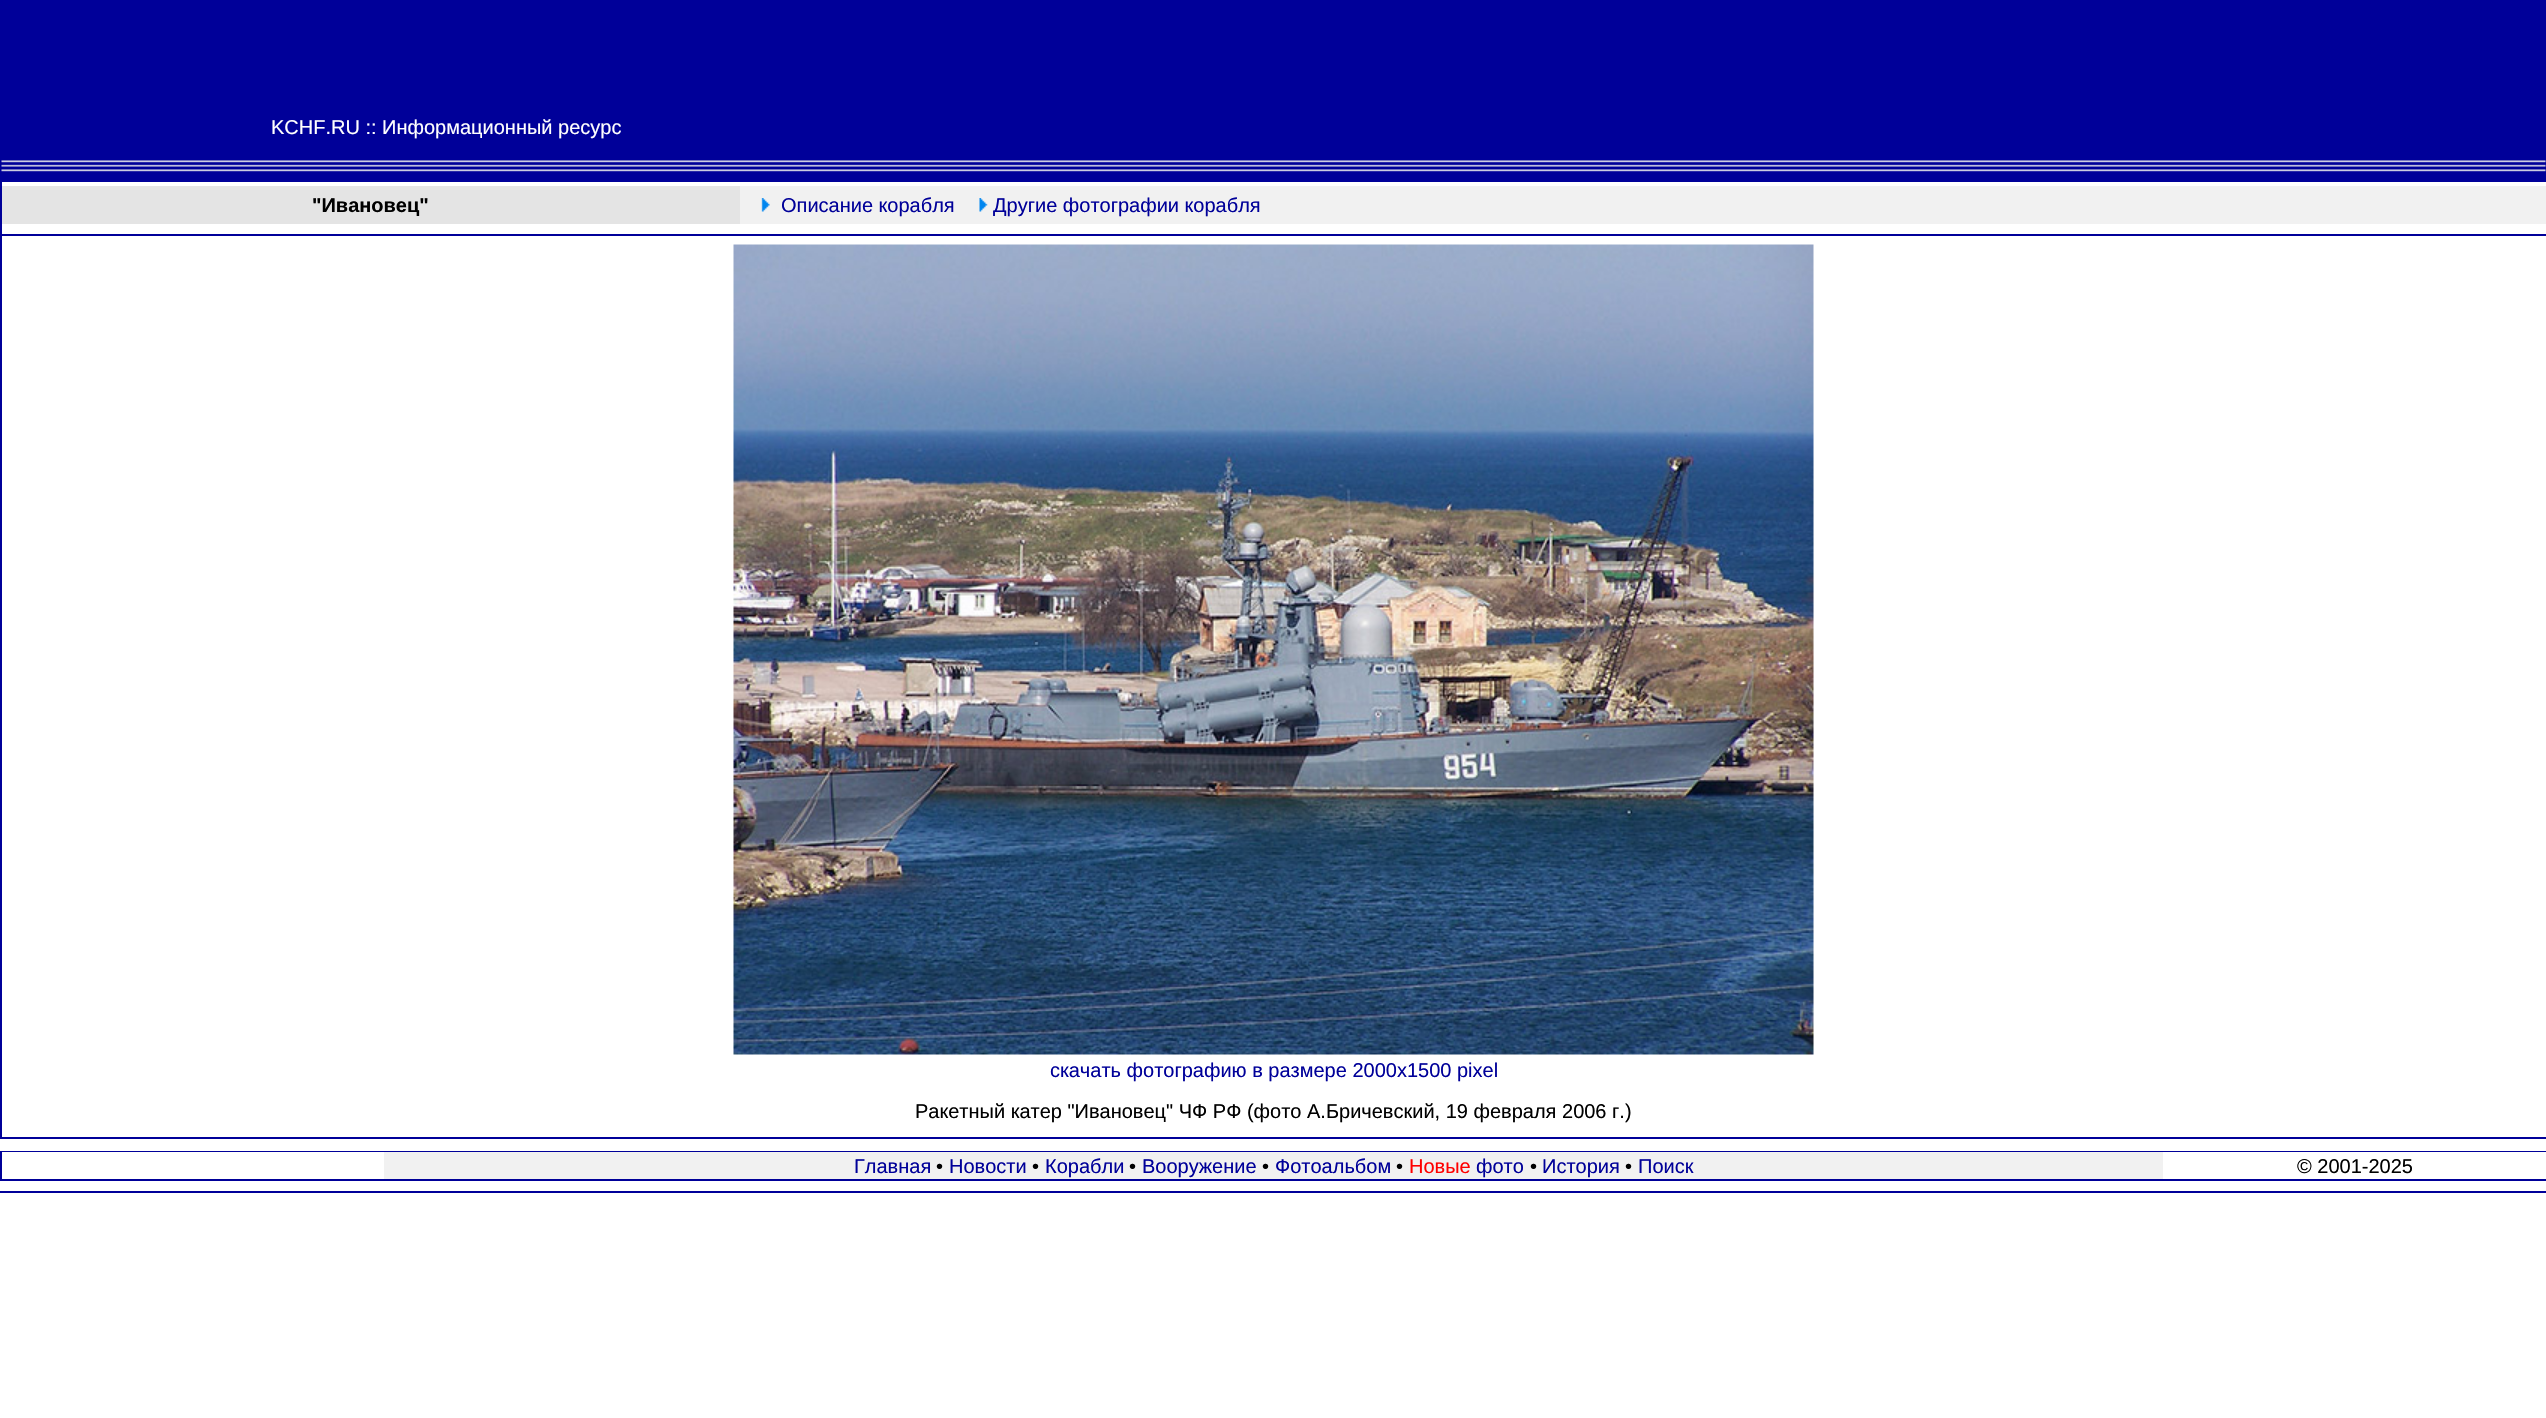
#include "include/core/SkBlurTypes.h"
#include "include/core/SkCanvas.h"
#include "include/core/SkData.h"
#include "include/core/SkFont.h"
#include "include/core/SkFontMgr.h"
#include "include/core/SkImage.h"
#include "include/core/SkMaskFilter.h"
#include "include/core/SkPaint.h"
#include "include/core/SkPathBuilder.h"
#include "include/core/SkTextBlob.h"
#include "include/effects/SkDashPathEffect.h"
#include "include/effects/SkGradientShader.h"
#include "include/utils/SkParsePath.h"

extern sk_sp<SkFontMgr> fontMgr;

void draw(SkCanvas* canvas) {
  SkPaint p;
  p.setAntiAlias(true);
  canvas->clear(SK_ColorWHITE);
  p.setColor(SkColorSetRGB(0, 0, 153));
  canvas->drawRect(SkRect::MakeLTRB(0, 0, 2546, 1139), p);
  p.setColor(SK_ColorWHITE);
  canvas->drawRect(SkRect::MakeLTRB(2, 182, 2546, 1137), p);
  canvas->drawImageRect(SkImages::DeferredFromEncodedData(SkData::MakeFromFileName("images/1.png")), SkRect::MakeLTRB(1, 160, 2546, 172), SkSamplingOptions());
  p.setColor(SkColorSetRGB(228, 228, 228));
  canvas->drawRect(SkRect::MakeLTRB(2, 186, 740, 224), p);
  p.setColor(SkColorSetRGB(241, 241, 241));
  canvas->drawRect(SkRect::MakeLTRB(740, 186, 2546, 224), p);
  canvas->drawImageRect(SkImages::DeferredFromEncodedData(SkData::MakeFromFileName("images/2.png")), SkRect::MakeLTRB(761, 198, 770, 212), SkSamplingOptions());
  canvas->drawImageRect(SkImages::DeferredFromEncodedData(SkData::MakeFromFileName("images/3.png")), SkRect::MakeLTRB(979, 198, 988, 212), SkSamplingOptions());
  p.setColor(SkColorSetRGB(0, 0, 153));
  canvas->drawRect(SkRect::MakeLTRB(2, 234, 2546, 236), p);
  canvas->drawImageRect(SkImages::DeferredFromEncodedData(SkData::MakeFromFileName("images/4.png")), SkRect::MakeLTRB(733, 244, 1814, 1055), SkSamplingOptions());
  canvas->drawRect(SkRect::MakeLTRB(0, 1151, 2546, 1181), p);
  p.setColor(SK_ColorWHITE);
  canvas->drawRect(SkRect::MakeLTRB(2, 1152, 2546, 1179), p);
  p.setColor(SkColorSetRGB(241, 241, 241));
  canvas->drawRect(SkRect::MakeLTRB(384, 1152, 2163, 1179), p);
  p.setColor(SkColorSetRGB(0, 0, 153));
  canvas->drawRect(SkRect::MakeLTRB(0, 1191, 2546, 1193), p);
  SkFont font1(fontMgr->matchFamilyStyle("Liberation Sans", SkFontStyle::Normal()), 20);
  font1.setSubpixel(true);
  p.setColor(SK_ColorWHITE);
  canvas->drawString("KCHF.RU :: Информационный ресурс", 271, 134, font1, p);
  SkFont font2(fontMgr->matchFamilyStyle("Liberation Sans", SkFontStyle::Bold()), 20);
  font2.setSubpixel(true);
  p.setColor(SK_ColorBLACK);
  canvas->drawString("\"Ивановец\"", 312, 212, font2, p);
  p.setColor(SkColorSetRGB(0, 0, 153));
  canvas->drawString("Описание корабля", 781, 212, font1, p);
  canvas->drawString("Другие фотографии корабля", 993, 212, font1, p);
  canvas->drawString("скачать фотографию в размере 2000х1500 pixel", 1050, 1077, font1, p);
  p.setColor(SK_ColorBLACK);
  canvas->drawString("Ракетный катер \"Ивановец\" ЧФ РФ (фото А.Бричевский, 19 февраля 2006 г.)", 915, 1118, font1, p);
  p.setColor(SkColorSetRGB(0, 0, 153));
  canvas->drawString("Главная", 854, 1173, font1, p);
  p.setColor(SK_ColorBLACK);
  canvas->drawString("•", 936, 1173, font1, p);
  p.setColor(SkColorSetRGB(0, 0, 153));
  canvas->drawString("Новости", 949, 1173, font1, p);
  p.setColor(SK_ColorBLACK);
  canvas->drawString("•", 1032, 1173, font1, p);
  p.setColor(SkColorSetRGB(0, 0, 153));
  canvas->drawString("Корабли", 1045, 1173, font1, p);
  p.setColor(SK_ColorBLACK);
  canvas->drawString("•", 1129, 1173, font1, p);
  p.setColor(SkColorSetRGB(0, 0, 153));
  canvas->drawString("Вооружение", 1142, 1173, font1, p);
  p.setColor(SK_ColorBLACK);
  canvas->drawString("•", 1262, 1173, font1, p);
  p.setColor(SkColorSetRGB(0, 0, 153));
  canvas->drawString("Фотоальбом", 1275, 1173, font1, p);
  p.setColor(SK_ColorBLACK);
  canvas->drawString("•", 1396, 1173, font1, p);
  p.setColor(SkColorSetRGB(255, 0, 0));
  canvas->drawString("Новые", 1409, 1173, font1, p);
  p.setColor(SkColorSetRGB(0, 0, 153));
  canvas->drawString("фото", 1476, 1173, font1, p);
  p.setColor(SK_ColorBLACK);
  canvas->drawString("•", 1530, 1173, font1, p);
  p.setColor(SkColorSetRGB(0, 0, 153));
  canvas->drawString("История", 1542, 1173, font1, p);
  p.setColor(SK_ColorBLACK);
  canvas->drawString("•", 1625, 1173, font1, p);
  p.setColor(SkColorSetRGB(0, 0, 153));
  canvas->drawString("Поиск", 1638, 1173, font1, p);
  p.setColor(SK_ColorBLACK);
  canvas->drawString("© 2001-2025", 2297, 1173, font1, p);
}
